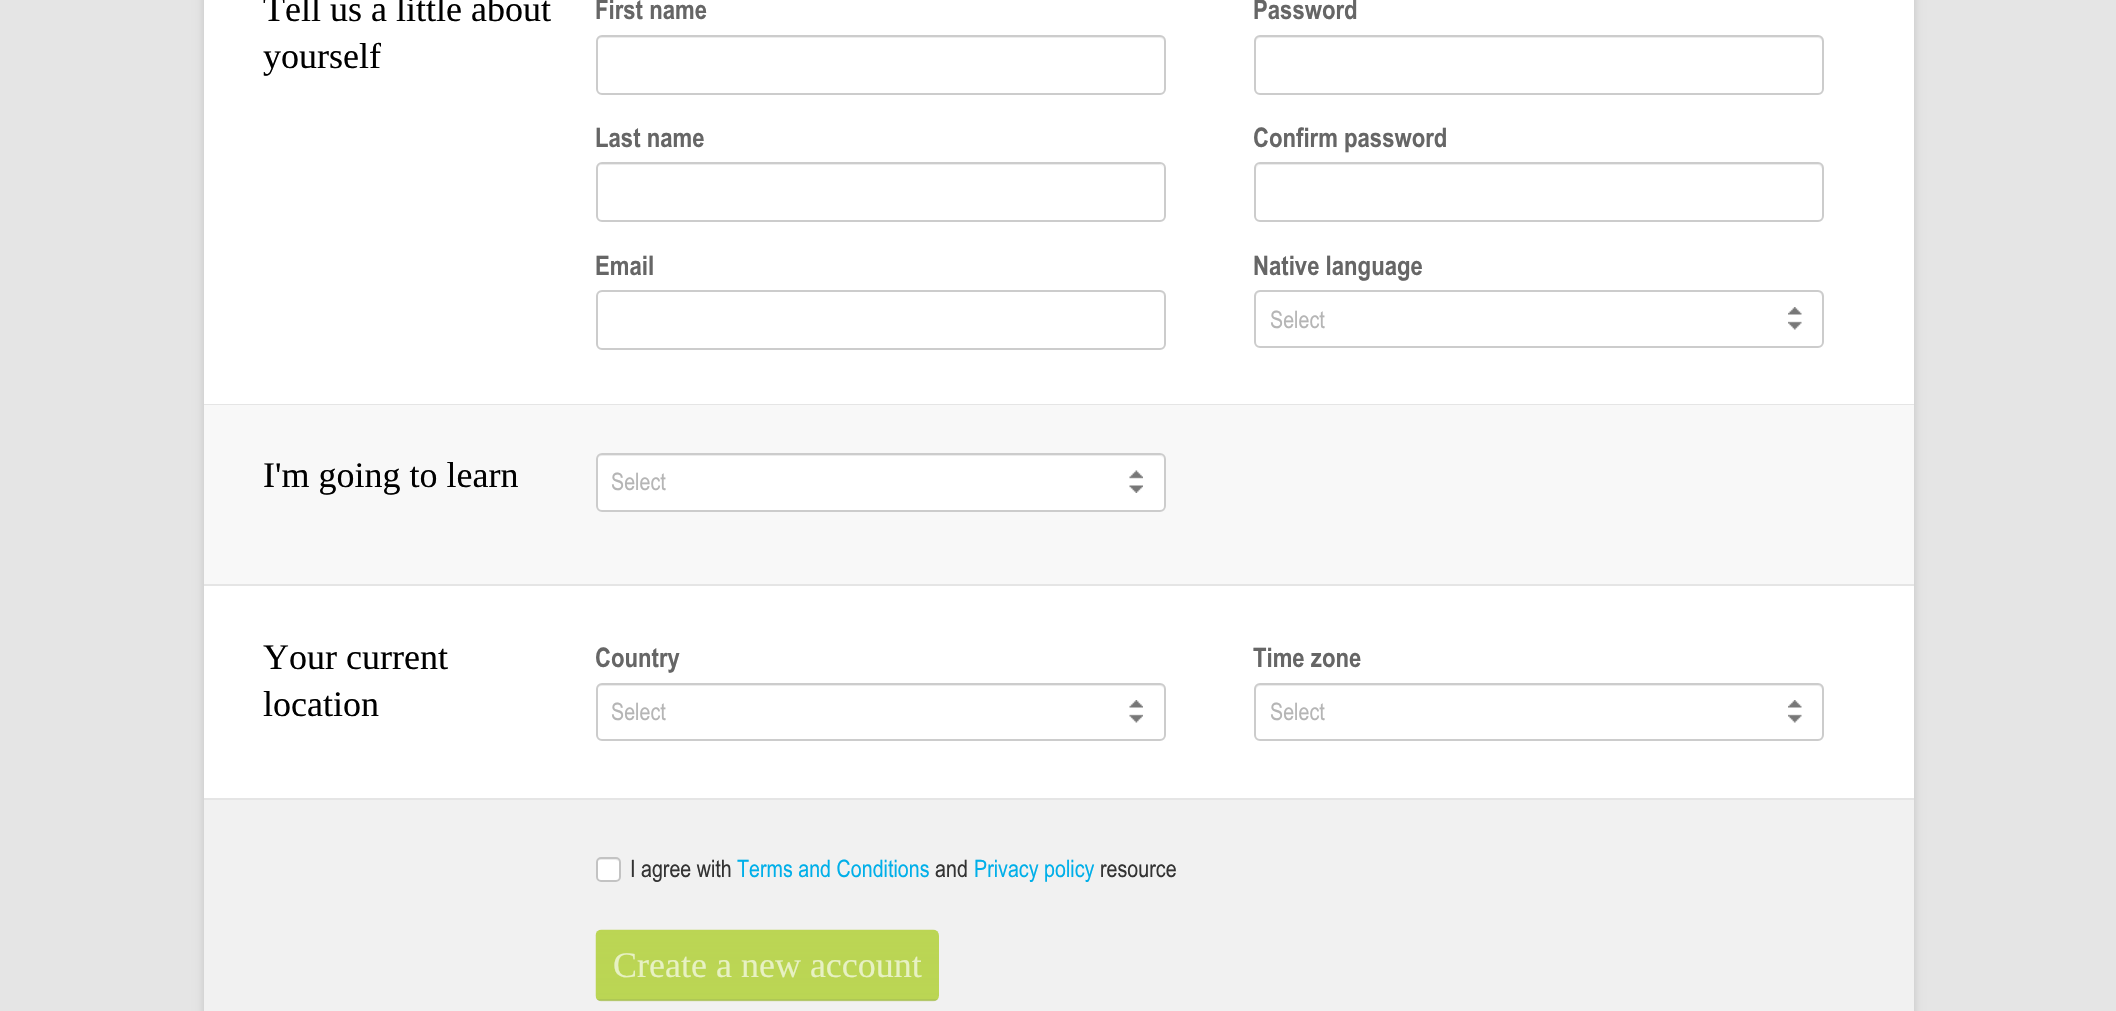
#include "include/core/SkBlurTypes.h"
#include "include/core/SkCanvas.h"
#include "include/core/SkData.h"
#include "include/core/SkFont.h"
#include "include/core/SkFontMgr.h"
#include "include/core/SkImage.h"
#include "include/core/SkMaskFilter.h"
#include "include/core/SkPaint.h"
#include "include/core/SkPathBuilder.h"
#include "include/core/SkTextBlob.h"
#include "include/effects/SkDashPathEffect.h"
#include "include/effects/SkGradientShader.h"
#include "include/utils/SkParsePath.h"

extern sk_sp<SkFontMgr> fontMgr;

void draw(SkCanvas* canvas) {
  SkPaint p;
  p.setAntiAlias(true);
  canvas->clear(SkColorSetRGB(229, 229, 229));
  p.setColor(SkColorSetARGB(38, 0, 0, 0));
  p.setMaskFilter(SkMaskFilter::MakeBlur(kNormal_SkBlurStyle, 4.5f));
  canvas->drawRect(SkRect::MakeLTRB(204, -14, 1914, 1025), p);
  p.setMaskFilter(nullptr);
  p.setColor(SK_ColorWHITE);
  canvas->drawRect(SkRect::MakeLTRB(204, 0, 1914, 798), p);
  p.setColor(SkColorSetRGB(236, 236, 236));
  canvas->drawPath(SkPathBuilder().moveTo(602, 38).lineTo(1160, 38).cubicTo(1162, 38, 1164, 40, 1164, 42).cubicTo(1164, 39, 1162, 36, 1159, 36).lineTo(602, 36).cubicTo(599, 36, 597, 39, 597, 42).cubicTo(597, 40, 599, 38, 602, 38).close().detach(), p);
  p.setStyle(SkPaint::kStroke_Style);
  p.setStrokeWidth(2);
  p.setColor(SkColorSetRGB(204, 204, 204));
  canvas->drawRoundRect(SkRect::MakeLTRB(597, 36, 1165, 94), 5, 5, p);
  p.setStyle(SkPaint::kFill_Style);
  p.setColor(SkColorSetRGB(236, 236, 236));
  canvas->drawPath(SkPathBuilder().moveTo(602, 165).lineTo(1160, 165).cubicTo(1162, 165, 1164, 167, 1164, 170).cubicTo(1164, 167, 1162, 164, 1159, 164).lineTo(602, 164).cubicTo(599, 164, 597, 167, 597, 170).cubicTo(597, 167, 599, 165, 602, 165).close().detach(), p);
  p.setStyle(SkPaint::kStroke_Style);
  p.setColor(SkColorSetRGB(204, 204, 204));
  canvas->drawRoundRect(SkRect::MakeLTRB(597, 163, 1165, 221), 5, 5, p);
  p.setStyle(SkPaint::kFill_Style);
  p.setColor(SkColorSetRGB(236, 236, 236));
  canvas->drawPath(SkPathBuilder().moveTo(602, 292).lineTo(1160, 292).cubicTo(1162, 292, 1164, 295, 1164, 297).cubicTo(1164, 294, 1162, 291, 1159, 291).lineTo(602, 291).cubicTo(599, 291, 597, 294, 597, 297).cubicTo(597, 295, 599, 292, 602, 292).close().detach(), p);
  p.setStyle(SkPaint::kStroke_Style);
  p.setColor(SkColorSetRGB(204, 204, 204));
  canvas->drawRoundRect(SkRect::MakeLTRB(597, 291, 1165, 349), 5, 5, p);
  p.setStyle(SkPaint::kFill_Style);
  p.setColor(SkColorSetRGB(236, 236, 236));
  canvas->drawPath(SkPathBuilder().moveTo(1260, 38).lineTo(1818, 38).cubicTo(1820, 38, 1822, 40, 1822, 42).lineTo(1822, 91).cubicTo(1823, 90, 1823, 89, 1823, 88).lineTo(1823, 41).cubicTo(1823, 38, 1821, 36, 1818, 36).lineTo(1261, 36).cubicTo(1258, 36, 1256, 38, 1256, 41).lineTo(1256, 42).cubicTo(1256, 40, 1258, 38, 1260, 38).close().detach(), p);
  p.setStyle(SkPaint::kStroke_Style);
  p.setColor(SkColorSetRGB(204, 204, 204));
  canvas->drawRoundRect(SkRect::MakeLTRB(1255, 36, 1823, 94), 5, 5, p);
  p.setStyle(SkPaint::kFill_Style);
  p.setColor(SkColorSetRGB(236, 236, 236));
  canvas->drawPath(SkPathBuilder().moveTo(1260, 165).lineTo(1818, 165).cubicTo(1820, 165, 1822, 167, 1822, 170).lineTo(1822, 219).cubicTo(1823, 218, 1823, 217, 1823, 216).lineTo(1823, 169).cubicTo(1823, 166, 1821, 164, 1818, 164).lineTo(1261, 164).cubicTo(1258, 164, 1256, 166, 1256, 169).lineTo(1256, 170).cubicTo(1256, 167, 1258, 165, 1260, 165).close().detach(), p);
  p.setStyle(SkPaint::kStroke_Style);
  p.setColor(SkColorSetRGB(204, 204, 204));
  canvas->drawRoundRect(SkRect::MakeLTRB(1255, 163, 1823, 221), 5, 5, p);
  p.setStyle(SkPaint::kFill_Style);
  p.setColor(SkColorSetRGB(236, 236, 236));
  canvas->drawPath(SkPathBuilder().moveTo(1260, 292).lineTo(1818, 292).cubicTo(1820, 292, 1822, 295, 1822, 297).lineTo(1822, 345).cubicTo(1823, 344, 1823, 343, 1823, 342).lineTo(1823, 296).cubicTo(1823, 293, 1821, 291, 1818, 291).lineTo(1261, 291).cubicTo(1258, 291, 1256, 293, 1256, 296).lineTo(1256, 297).cubicTo(1256, 295, 1258, 292, 1260, 292).close().detach(), p);
  p.setStyle(SkPaint::kStroke_Style);
  p.setColor(SkColorSetRGB(204, 204, 204));
  canvas->drawRoundRect(SkRect::MakeLTRB(1255, 291, 1823, 347), 5, 5, p);
  canvas->drawImageRect(SkImages::DeferredFromEncodedData(SkData::MakeFromFileName("images/1.png")), SkRect::MakeLTRB(1788, 307, 1802, 330), SkSamplingOptions());
  p.setStyle(SkPaint::kFill_Style);
  p.setColor(SkColorSetRGB(229, 229, 229));
  canvas->drawRect(SkRect::MakeLTRB(204, 404, 1914, 405), p);
  p.setColor(SkColorSetRGB(248, 248, 248));
  canvas->drawRect(SkRect::MakeLTRB(204, 405, 1914, 584), p);
  p.setColor(SK_ColorWHITE);
  canvas->drawRoundRect(SkRect::MakeLTRB(596, 453, 1166, 512), 6, 6, p);
  p.setColor(SkColorSetRGB(236, 236, 236));
  canvas->drawPath(SkPathBuilder().moveTo(602, 456).lineTo(1160, 456).cubicTo(1162, 456, 1164, 458, 1164, 460).cubicTo(1164, 457, 1162, 455, 1159, 455).lineTo(602, 455).cubicTo(599, 455, 597, 457, 597, 460).cubicTo(597, 458, 599, 456, 602, 456).close().detach(), p);
  p.setStyle(SkPaint::kStroke_Style);
  p.setColor(SkColorSetRGB(204, 204, 204));
  canvas->drawRoundRect(SkRect::MakeLTRB(597, 454, 1165, 511), 5, 5, p);
  canvas->drawImageRect(SkImages::DeferredFromEncodedData(SkData::MakeFromFileName("images/2.png")), SkRect::MakeLTRB(1129, 470, 1143, 493), SkSamplingOptions());
  p.setStyle(SkPaint::kFill_Style);
  p.setColor(SkColorSetRGB(229, 229, 229));
  canvas->drawRect(SkRect::MakeLTRB(204, 584, 1914, 586), p);
  p.setColor(SkColorSetRGB(236, 236, 236));
  canvas->drawPath(SkPathBuilder().moveTo(602, 686).lineTo(1160, 686).cubicTo(1162, 686, 1164, 688, 1164, 690).cubicTo(1164, 687, 1162, 684, 1159, 684).lineTo(602, 684).cubicTo(599, 684, 597, 687, 597, 690).cubicTo(597, 688, 599, 686, 602, 686).close().detach(), p);
  p.setStyle(SkPaint::kStroke_Style);
  p.setColor(SkColorSetRGB(204, 204, 204));
  canvas->drawRoundRect(SkRect::MakeLTRB(597, 684, 1165, 740), 5, 5, p);
  canvas->drawImageRect(SkImages::DeferredFromEncodedData(SkData::MakeFromFileName("images/3.png")), SkRect::MakeLTRB(1129, 700, 1143, 723), SkSamplingOptions());
  p.setStyle(SkPaint::kFill_Style);
  p.setColor(SkColorSetRGB(236, 236, 236));
  canvas->drawPath(SkPathBuilder().moveTo(1260, 686).lineTo(1818, 686).cubicTo(1820, 686, 1822, 688, 1822, 690).lineTo(1822, 736).lineTo(1821, 739).cubicTo(1822, 738, 1823, 736, 1823, 735).lineTo(1823, 689).cubicTo(1823, 686, 1821, 684, 1818, 684).lineTo(1261, 684).cubicTo(1258, 684, 1256, 686, 1256, 689).lineTo(1256, 690).cubicTo(1256, 688, 1258, 686, 1260, 686).close().detach(), p);
  p.setStyle(SkPaint::kStroke_Style);
  p.setColor(SkColorSetRGB(204, 204, 204));
  canvas->drawRoundRect(SkRect::MakeLTRB(1255, 684, 1823, 740), 5, 5, p);
  canvas->drawImageRect(SkImages::DeferredFromEncodedData(SkData::MakeFromFileName("images/1.png")), SkRect::MakeLTRB(1788, 700, 1802, 723), SkSamplingOptions());
  p.setStyle(SkPaint::kFill_Style);
  p.setColor(SkColorSetRGB(229, 229, 229));
  canvas->drawRect(SkRect::MakeLTRB(204, 798, 1914, 800), p);
  p.setColor(SkColorSetRGB(241, 241, 241));
  canvas->drawRect(SkRect::MakeLTRB(204, 800, 1914, 1011), p);
  p.setColor(SK_ColorWHITE);
  canvas->drawRoundRect(SkRect::MakeLTRB(596, 857, 621, 882), 5, 5, p);
  p.setColor(SkColorSetRGB(236, 236, 236));
  canvas->drawPath(SkPathBuilder().moveTo(600, 860).lineTo(614, 860).cubicTo(618, 860, 619.5f, 861, 620, 863).cubicTo(620, 858, 619, 858, 614, 858).lineTo(603, 858).cubicTo(599, 858, 597, 858, 597, 862).cubicTo(597.5f, 861, 598.5f, 860, 600, 860).close().detach(), p);
  p.setStyle(SkPaint::kStroke_Style);
  p.setColor(SkColorSetRGB(195, 195, 195));
  canvas->drawRoundRect(SkRect::MakeLTRB(597, 858, 620, 881), 4, 4, p);
  canvas->drawImageRect(SkImages::DeferredFromEncodedData(SkData::MakeFromFileName("images/4.png")), SkRect::MakeLTRB(595, 929, 939, 1002), SkSamplingOptions());
  SkFont font1(fontMgr->matchFamilyStyle("Liberation Serif", SkFontStyle::Normal()), 36);
  font1.setSubpixel(true);
  p.setStyle(SkPaint::kFill_Style);
  p.setColor(SK_ColorBLACK);
  canvas->drawString("Tell us a little about", 263, 21, font1, p);
  canvas->drawString("yourself", 263, 68, font1, p);
  SkFont font2(fontMgr->matchFamilyStyle("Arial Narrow", SkFontStyle::Bold()), 27);
  font2.setSubpixel(true);
  p.setColor(SkColorSetRGB(102, 102, 102));
  canvas->drawString("First name", 595, 19, font2, p);
  canvas->drawString("Last name", 595, 147, font2, p);
  canvas->drawString("Email", 595, 275, font2, p);
  canvas->drawString("Password", 1253, 19, font2, p);
  canvas->drawString("Confirm password", 1253, 147, font2, p);
  canvas->drawString("Native language", 1253, 275, font2, p);
  SkFont font3(fontMgr->matchFamilyStyle("Arial Narrow", SkFontStyle::Normal()), 24);
  font3.setSubpixel(true);
  p.setColor(SkColorSetRGB(181, 181, 181));
  canvas->drawString("Select", 1270, 328, font3, p);
  p.setColor(SK_ColorBLACK);
  canvas->drawString("I'm going to learn", 263, 487, font1, p);
  p.setColor(SkColorSetRGB(181, 181, 181));
  canvas->drawString("Select", 611, 490, font3, p);
  p.setColor(SK_ColorBLACK);
  canvas->drawString("Your current", 263, 669, font1, p);
  canvas->drawString("location", 263, 716, font1, p);
  p.setColor(SkColorSetRGB(102, 102, 102));
  canvas->drawString("Country", 595, 667, font2, p);
  p.setColor(SkColorSetRGB(181, 181, 181));
  canvas->drawString("Select", 611, 720, font3, p);
  p.setColor(SkColorSetRGB(102, 102, 102));
  canvas->drawString("Time zone", 1253, 667, font2, p);
  p.setColor(SkColorSetRGB(181, 181, 181));
  canvas->drawString("Select", 1270, 720, font3, p);
  p.setColor(SkColorSetRGB(51, 51, 51));
  canvas->drawString("I agree with", 630, 877, font3, p);
  p.setColor(SkColorSetRGB(0, 175, 233));
  canvas->drawString("Terms and Conditions", 737, 877, font3, p);
  p.setColor(SkColorSetRGB(51, 51, 51));
  canvas->drawString("and", 935, 877, font3, p);
  p.setColor(SkColorSetRGB(0, 175, 233));
  canvas->drawString("Privacy policy", 974, 877, font3, p);
  p.setColor(SkColorSetRGB(51, 51, 51));
  canvas->drawString("resource", 1100, 877, font3, p);
  p.setColor(SkColorSetRGB(231, 241, 195));
  canvas->drawString("Create a new account", 613, 977, font1, p);
}
